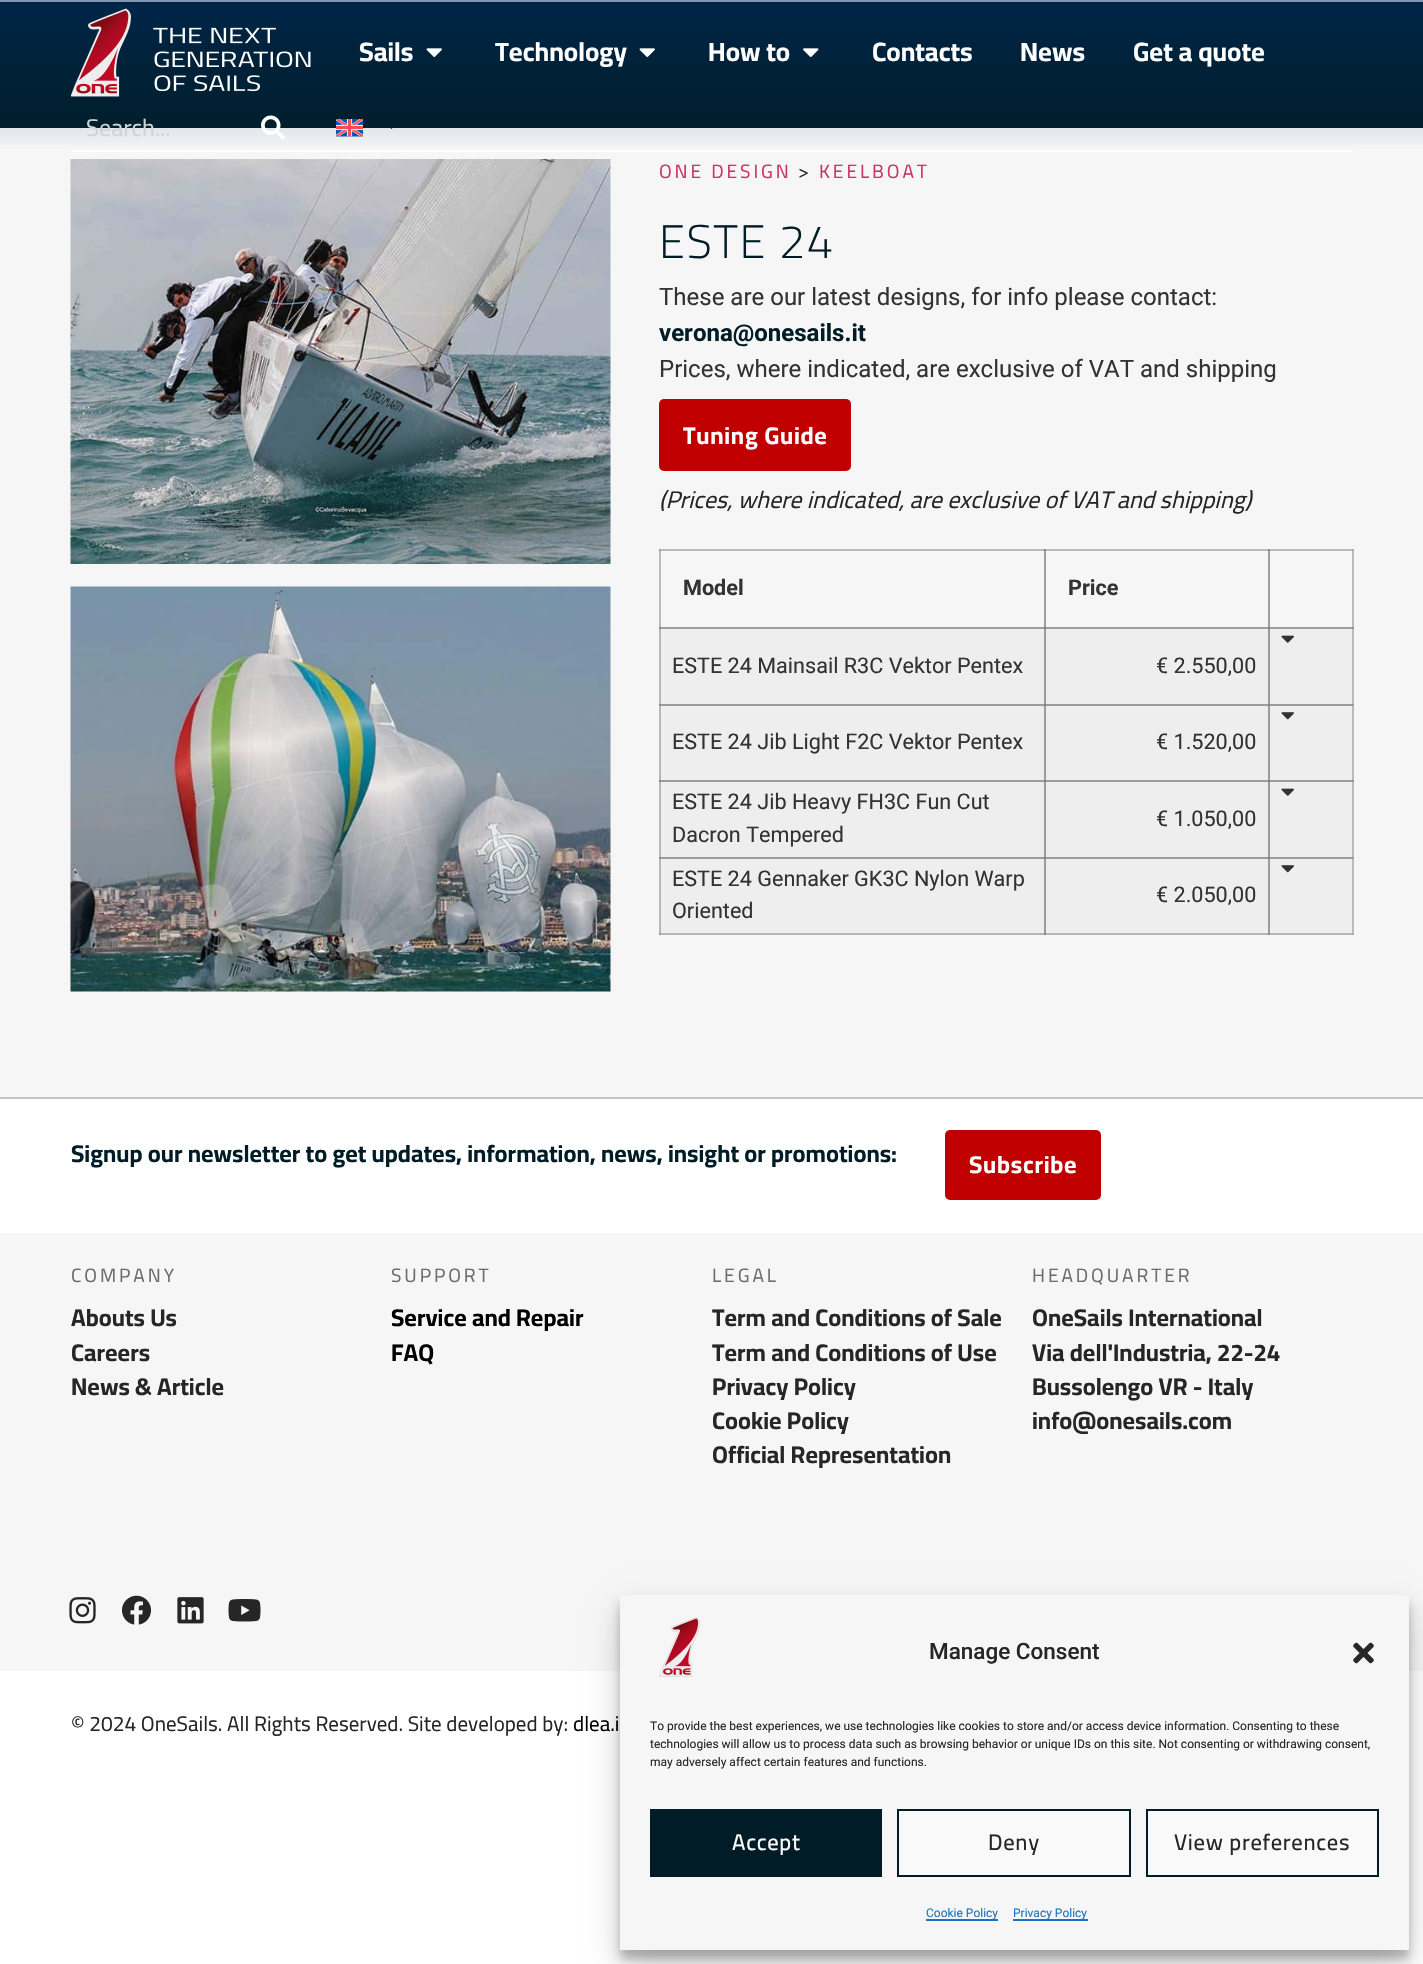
#include "include/core/SkBlurTypes.h"
#include "include/core/SkCanvas.h"
#include "include/core/SkData.h"
#include "include/core/SkFont.h"
#include "include/core/SkFontMgr.h"
#include "include/core/SkImage.h"
#include "include/core/SkMaskFilter.h"
#include "include/core/SkPaint.h"
#include "include/core/SkPathBuilder.h"
#include "include/core/SkTextBlob.h"
#include "include/effects/SkDashPathEffect.h"
#include "include/effects/SkGradientShader.h"
#include "include/utils/SkParsePath.h"

extern sk_sp<SkFontMgr> fontMgr;

void draw(SkCanvas* canvas) {
  SkPaint p;
  p.setAntiAlias(true);
  auto spacedText = [&](const char* s, float x, float y, const SkFont& font, const SkPaint& ink, float letter, float word) {
    std::vector<SkGlyphID> glyphs(font.countText(s, strlen(s), SkTextEncoding::kUTF8));
    std::vector<float> xs(glyphs.size());
    font.textToGlyphs(s, strlen(s), SkTextEncoding::kUTF8, glyphs);
    font.getXPos(glyphs, xs, x);
    float extra = 0;
    for (size_t i = 0; i < glyphs.size(); i++) {
      xs[i] += extra;
      extra += letter + word * (glyphs[i] == font.unicharToGlyph(' '));
    }
    canvas->drawTextBlob(SkTextBlob::MakeFromPosHGlyphs(glyphs, xs, y, font), 0, 0, ink);
  };
  canvas->clear(SK_ColorWHITE);
  p.setColor(SkColorSetRGB(246, 246, 246));
  canvas->drawRect(SkRect::MakeLTRB(0, 128, 1423, 1097), p);
  p.setColor(SkColorSetRGB(0, 28, 38));
  canvas->drawRect(SkRect::MakeLTRB(0, 2, 1423, 128), p);
  {
    const SkColor colors[] = {SkColorSetARGB(128, 0, 46, 104), SkColorSetARGB(0, 0, 46, 104)};
    const float stops[] = {0, 1};
    const SkPoint ends[] = {{712, 0}, {712, 152}};
    p.setShader(SkGradientShader::MakeLinear(ends, colors, stops, 2, SkTileMode::kClamp));
    p.setAlpha(255);
  }
  canvas->drawRect(SkRect::MakeLTRB(0, 0, 1423, 145), p);
  canvas->drawImageRect(SkImages::DeferredFromEncodedData(SkData::MakeFromFileName("images/1.png")), SkRect::MakeLTRB(71, 8, 311, 97), SkSamplingOptions());
  canvas->drawImageRect(SkImages::DeferredFromEncodedData(SkData::MakeFromFileName("images/2.png")), SkRect::MakeLTRB(426, 48, 442, 57), SkSamplingOptions());
  canvas->drawImageRect(SkImages::DeferredFromEncodedData(SkData::MakeFromFileName("images/2.png")), SkRect::MakeLTRB(639, 48, 655, 57), SkSamplingOptions());
  canvas->drawImageRect(SkImages::DeferredFromEncodedData(SkData::MakeFromFileName("images/3.png")), SkRect::MakeLTRB(803, 48, 819, 57), SkSamplingOptions());
  canvas->drawImageRect(SkImages::DeferredFromEncodedData(SkData::MakeFromFileName("images/4.png")), SkRect::MakeLTRB(261, 115, 285, 140), SkSamplingOptions());
  canvas->drawImageRect(SkImages::DeferredFromEncodedData(SkData::MakeFromFileName("images/5.png")), SkRect::MakeLTRB(336, 119, 363, 137), SkSamplingOptions());
  p.setShader(nullptr);
  p.setColor(SkColorSetRGB(0, 28, 38));
  canvas->drawPath(SkPathBuilder().moveTo(390, 127.5f).lineTo(393, 127.5f).lineTo(391.5f, 129).close().detach(), p);
  p.setColor(SK_ColorWHITE);
  canvas->drawRect(SkRect::MakeLTRB(71, 150, 1353, 152), p);
  p.setColor(SkColorSetRGB(187, 187, 187));
  canvas->drawRect(SkRect::MakeLTRB(659, 549, 661, 629), p);
  canvas->drawRect(SkRect::MakeLTRB(659, 549, 1046, 551), p);
  p.setColor(SkColorSetRGB(158, 158, 158));
  canvas->drawRect(SkRect::MakeLTRB(659, 549, 661, 551), p);
  canvas->drawRect(SkRect::MakeLTRB(1044, 549, 1046, 629), p);
  p.setColor(SkColorSetRGB(187, 187, 187));
  canvas->drawRect(SkRect::MakeLTRB(1044, 549, 1269, 551), p);
  p.setColor(SkColorSetRGB(136, 136, 136));
  canvas->drawRect(SkRect::MakeLTRB(1044, 549, 1046, 551), p);
  p.setColor(SkColorSetRGB(158, 158, 158));
  canvas->drawRect(SkRect::MakeLTRB(1268, 549, 1270, 629), p);
  p.setColor(SkColorSetRGB(187, 187, 187));
  canvas->drawRect(SkRect::MakeLTRB(1352, 549, 1354, 935), p);
  canvas->drawRect(SkRect::MakeLTRB(659, 627, 660, 935), p);
  p.setColor(SkColorSetRGB(158, 158, 158));
  canvas->drawRect(SkRect::MakeLTRB(659, 627, 1269, 629), p);
  p.setColor(SkColorSetRGB(136, 136, 136));
  canvas->drawRect(SkRect::MakeLTRB(659, 627, 661, 629), p);
  p.setColor(SkColorSetRGB(129, 129, 129));
  canvas->drawRect(SkRect::MakeLTRB(1044, 627, 1046, 629), p);
  p.setColor(SkColorSetRGB(158, 158, 158));
  canvas->drawRect(SkRect::MakeLTRB(1268, 627, 1354, 629), p);
  p.setColor(SkColorSetRGB(143, 143, 143));
  canvas->drawRect(SkRect::MakeLTRB(659, 705, 661, 706), p);
  p.setColor(SkColorSetRGB(136, 136, 136));
  canvas->drawRect(SkRect::MakeLTRB(659, 704, 661, 705), p);
  p.setColor(SkColorSetRGB(158, 158, 158));
  canvas->drawRect(SkRect::MakeLTRB(1352, 704, 1354, 705), p);
  p.setColor(SkColorSetRGB(143, 143, 143));
  canvas->drawRect(SkRect::MakeLTRB(1352, 704, 1353, 706), p);
  p.setColor(SkColorSetRGB(136, 136, 136));
  canvas->drawRect(SkRect::MakeLTRB(1352, 704, 1353, 705), p);
  canvas->drawRect(SkRect::MakeLTRB(659, 780, 661, 782), p);
  p.setColor(SkColorSetRGB(158, 158, 158));
  canvas->drawRect(SkRect::MakeLTRB(1352, 780, 1354, 782), p);
  p.setColor(SkColorSetRGB(136, 136, 136));
  canvas->drawRect(SkRect::MakeLTRB(1352, 780, 1353, 782), p);
  p.setColor(SkColorSetRGB(158, 158, 158));
  canvas->drawRect(SkRect::MakeLTRB(659, 933, 661, 935), p);
  p.setColor(SkColorSetRGB(143, 143, 143));
  canvas->drawRect(SkRect::MakeLTRB(659, 858, 661, 859), p);
  p.setColor(SkColorSetRGB(136, 136, 136));
  canvas->drawRect(SkRect::MakeLTRB(659, 857, 661, 858), p);
  p.setColor(SkColorSetRGB(158, 158, 158));
  canvas->drawRect(SkRect::MakeLTRB(1352, 857, 1354, 858), p);
  canvas->drawRect(SkRect::MakeLTRB(1352, 933, 1353, 935), p);
  p.setColor(SkColorSetRGB(143, 143, 143));
  canvas->drawRect(SkRect::MakeLTRB(1352, 857, 1353, 859), p);
  p.setColor(SkColorSetRGB(136, 136, 136));
  canvas->drawRect(SkRect::MakeLTRB(1352, 857, 1353, 858), p);
  canvas->drawImageRect(SkImages::DeferredFromEncodedData(SkData::MakeFromFileName("images/6.png")), SkRect::MakeLTRB(70, 159, 611, 564), SkSamplingOptions());
  canvas->drawImageRect(SkImages::DeferredFromEncodedData(SkData::MakeFromFileName("images/7.png")), SkRect::MakeLTRB(70, 586, 611, 992), SkSamplingOptions());
  p.setColor(SkColorSetRGB(192, 0, 0));
  canvas->drawRoundRect(SkRect::MakeLTRB(659, 399, 851, 471), 5, 5, p);
  p.setColor(SkColorSetRGB(187, 187, 187));
  canvas->drawRect(SkRect::MakeLTRB(1268, 549, 1353, 551), p);
  p.setColor(SkColorSetRGB(143, 143, 143));
  canvas->drawRect(SkRect::MakeLTRB(1268, 549, 1270, 551), p);
  p.setColor(SkColorSetRGB(136, 136, 136));
  canvas->drawRect(SkRect::MakeLTRB(1268, 549, 1269, 551), p);
  p.setColor(SkColorSetRGB(158, 158, 158));
  canvas->drawRect(SkRect::MakeLTRB(1352, 549, 1353, 551), p);
  p.setColor(SkColorSetRGB(238, 238, 238));
  canvas->drawRect(SkRect::MakeLTRB(661, 629, 1044, 704), p);
  p.setColor(SkColorSetRGB(183, 183, 183));
  canvas->drawRect(SkRect::MakeLTRB(660, 629, 661, 935), p);
  p.setColor(SkColorSetRGB(156, 156, 156));
  canvas->drawRect(SkRect::MakeLTRB(660, 704, 1044, 706), p);
  p.setColor(SkColorSetRGB(135, 135, 135));
  canvas->drawRect(SkRect::MakeLTRB(660, 704, 661, 705), p);
  p.setColor(SkColorSetRGB(238, 238, 238));
  canvas->drawRect(SkRect::MakeLTRB(1046, 629, 1268, 704), p);
  p.setColor(SkColorSetRGB(156, 156, 156));
  canvas->drawRect(SkRect::MakeLTRB(1044, 629, 1046, 935), p);
  canvas->drawRect(SkRect::MakeLTRB(1268, 629, 1270, 705), p);
  canvas->drawRect(SkRect::MakeLTRB(1044, 704, 1352, 705), p);
  p.setColor(SkColorSetRGB(129, 129, 129));
  canvas->drawRect(SkRect::MakeLTRB(1044, 704, 1046, 705), p);
  canvas->drawRect(SkRect::MakeLTRB(1268, 704, 1269, 705), p);
  p.setColor(SkColorSetRGB(238, 238, 238));
  canvas->drawRect(SkRect::MakeLTRB(1270, 629, 1352, 704), p);
  p.setColor(SkColorSetRGB(130, 130, 130));
  canvas->drawRect(SkRect::MakeLTRB(1269, 704, 1270, 705), p);
  canvas->drawRect(SkRect::MakeLTRB(1268, 627, 1270, 629), p);
  p.setColor(SkColorSetRGB(136, 136, 136));
  canvas->drawRect(SkRect::MakeLTRB(1352, 627, 1353, 629), p);
  canvas->drawImageRect(SkImages::DeferredFromEncodedData(SkData::MakeFromFileName("images/8.png")), SkRect::MakeLTRB(1281, 635, 1294, 643), SkSamplingOptions());
  p.setColor(SkColorSetRGB(238, 238, 238));
  canvas->drawRect(SkRect::MakeLTRB(661, 706, 1044, 780), p);
  p.setColor(SkColorSetRGB(142, 142, 142));
  canvas->drawRect(SkRect::MakeLTRB(660, 705, 661, 706), p);
  p.setColor(SkColorSetRGB(156, 156, 156));
  canvas->drawRect(SkRect::MakeLTRB(660, 780, 1044, 782), p);
  p.setColor(SkColorSetRGB(135, 135, 135));
  canvas->drawRect(SkRect::MakeLTRB(660, 780, 661, 782), p);
  p.setColor(SkColorSetRGB(238, 238, 238));
  canvas->drawRect(SkRect::MakeLTRB(1046, 706, 1268, 780), p);
  p.setColor(SkColorSetRGB(156, 156, 156));
  canvas->drawRect(SkRect::MakeLTRB(1044, 705, 1269, 706), p);
  p.setColor(SkColorSetRGB(130, 130, 130));
  canvas->drawRect(SkRect::MakeLTRB(1044, 705, 1046, 706), p);
  p.setColor(SkColorSetRGB(156, 156, 156));
  canvas->drawRect(SkRect::MakeLTRB(1268, 705, 1270, 782), p);
  p.setColor(SkColorSetRGB(130, 130, 130));
  canvas->drawRect(SkRect::MakeLTRB(1268, 705, 1269, 706), p);
  p.setColor(SkColorSetRGB(156, 156, 156));
  canvas->drawRect(SkRect::MakeLTRB(1044, 780, 1352, 782), p);
  p.setColor(SkColorSetRGB(129, 129, 129));
  canvas->drawRect(SkRect::MakeLTRB(1044, 780, 1046, 782), p);
  canvas->drawRect(SkRect::MakeLTRB(1268, 780, 1269, 782), p);
  p.setColor(SkColorSetRGB(238, 238, 238));
  canvas->drawRect(SkRect::MakeLTRB(1270, 706, 1352, 780), p);
  p.setColor(SkColorSetRGB(156, 156, 156));
  canvas->drawRect(SkRect::MakeLTRB(1269, 705, 1352, 706), p);
  p.setColor(SkColorSetRGB(135, 135, 135));
  canvas->drawRect(SkRect::MakeLTRB(1269, 705, 1270, 706), p);
  p.setColor(SkColorSetRGB(130, 130, 130));
  canvas->drawRect(SkRect::MakeLTRB(1269, 780, 1270, 782), p);
  canvas->drawImageRect(SkImages::DeferredFromEncodedData(SkData::MakeFromFileName("images/9.png")), SkRect::MakeLTRB(1281, 712, 1294, 720), SkSamplingOptions());
  p.setColor(SkColorSetRGB(238, 238, 238));
  canvas->drawRect(SkRect::MakeLTRB(661, 782, 1044, 857), p);
  p.setColor(SkColorSetRGB(156, 156, 156));
  canvas->drawRect(SkRect::MakeLTRB(660, 857, 1044, 859), p);
  p.setColor(SkColorSetRGB(135, 135, 135));
  canvas->drawRect(SkRect::MakeLTRB(660, 857, 661, 858), p);
  p.setColor(SkColorSetRGB(238, 238, 238));
  canvas->drawRect(SkRect::MakeLTRB(1046, 782, 1268, 857), p);
  p.setColor(SkColorSetRGB(156, 156, 156));
  canvas->drawRect(SkRect::MakeLTRB(1268, 782, 1270, 858), p);
  canvas->drawRect(SkRect::MakeLTRB(1044, 857, 1352, 858), p);
  p.setColor(SkColorSetRGB(129, 129, 129));
  canvas->drawRect(SkRect::MakeLTRB(1044, 857, 1046, 858), p);
  canvas->drawRect(SkRect::MakeLTRB(1268, 857, 1269, 858), p);
  p.setColor(SkColorSetRGB(238, 238, 238));
  canvas->drawRect(SkRect::MakeLTRB(1270, 782, 1352, 857), p);
  p.setColor(SkColorSetRGB(130, 130, 130));
  canvas->drawRect(SkRect::MakeLTRB(1269, 857, 1270, 858), p);
  canvas->drawImageRect(SkImages::DeferredFromEncodedData(SkData::MakeFromFileName("images/8.png")), SkRect::MakeLTRB(1281, 788, 1294, 796), SkSamplingOptions());
  p.setColor(SkColorSetRGB(238, 238, 238));
  canvas->drawRect(SkRect::MakeLTRB(661, 859, 1044, 933), p);
  p.setColor(SkColorSetRGB(183, 183, 183));
  canvas->drawRect(SkRect::MakeLTRB(660, 933, 1269, 935), p);
  p.setColor(SkColorSetRGB(156, 156, 156));
  canvas->drawRect(SkRect::MakeLTRB(660, 933, 661, 935), p);
  p.setColor(SkColorSetRGB(142, 142, 142));
  canvas->drawRect(SkRect::MakeLTRB(660, 858, 661, 859), p);
  p.setColor(SkColorSetRGB(238, 238, 238));
  canvas->drawRect(SkRect::MakeLTRB(1046, 859, 1268, 933), p);
  p.setColor(SkColorSetRGB(135, 135, 135));
  canvas->drawRect(SkRect::MakeLTRB(1044, 933, 1046, 935), p);
  p.setColor(SkColorSetRGB(156, 156, 156));
  canvas->drawRect(SkRect::MakeLTRB(1044, 858, 1269, 859), p);
  p.setColor(SkColorSetRGB(130, 130, 130));
  canvas->drawRect(SkRect::MakeLTRB(1044, 858, 1046, 859), p);
  p.setColor(SkColorSetRGB(156, 156, 156));
  canvas->drawRect(SkRect::MakeLTRB(1268, 858, 1270, 935), p);
  p.setColor(SkColorSetRGB(135, 135, 135));
  canvas->drawRect(SkRect::MakeLTRB(1268, 933, 1269, 935), p);
  p.setColor(SkColorSetRGB(130, 130, 130));
  canvas->drawRect(SkRect::MakeLTRB(1268, 858, 1269, 859), p);
  p.setColor(SkColorSetRGB(238, 238, 238));
  canvas->drawRect(SkRect::MakeLTRB(1270, 859, 1352, 933), p);
  p.setColor(SkColorSetRGB(183, 183, 183));
  canvas->drawRect(SkRect::MakeLTRB(1269, 933, 1352, 935), p);
  p.setColor(SkColorSetRGB(142, 142, 142));
  canvas->drawRect(SkRect::MakeLTRB(1269, 933, 1270, 935), p);
  p.setColor(SkColorSetRGB(156, 156, 156));
  canvas->drawRect(SkRect::MakeLTRB(1269, 858, 1352, 859), p);
  p.setColor(SkColorSetRGB(135, 135, 135));
  canvas->drawRect(SkRect::MakeLTRB(1269, 858, 1270, 859), p);
  canvas->drawImageRect(SkImages::DeferredFromEncodedData(SkData::MakeFromFileName("images/9.png")), SkRect::MakeLTRB(1281, 865, 1294, 873), SkSamplingOptions());
  p.setColor(SkColorSetRGB(197, 197, 197));
  canvas->drawRect(SkRect::MakeLTRB(0, 1097, 1423, 1099), p);
  p.setColor(SkColorSetRGB(192, 0, 0));
  canvas->drawRoundRect(SkRect::MakeLTRB(945, 1130, 1101, 1200), 5, 5, p);
  p.setColor(SkColorSetRGB(246, 246, 246));
  canvas->drawRect(SkRect::MakeLTRB(0, 1233, 1423, 1671), p);
  canvas->drawImageRect(SkImages::DeferredFromEncodedData(SkData::MakeFromFileName("images/10.png")), SkRect::MakeLTRB(69, 1597, 96, 1624), SkSamplingOptions());
  canvas->drawImageRect(SkImages::DeferredFromEncodedData(SkData::MakeFromFileName("images/11.png")), SkRect::MakeLTRB(122, 1595, 151, 1625), SkSamplingOptions());
  canvas->drawImageRect(SkImages::DeferredFromEncodedData(SkData::MakeFromFileName("images/12.png")), SkRect::MakeLTRB(177, 1597, 204, 1624), SkSamplingOptions());
  canvas->drawImageRect(SkImages::DeferredFromEncodedData(SkData::MakeFromFileName("images/13.png")), SkRect::MakeLTRB(228, 1599, 261, 1622), SkSamplingOptions());
  p.setColor(SkColorSetARGB(59, 0, 0, 0));
  p.setMaskFilter(SkMaskFilter::MakeBlur(kNormal_SkBlurStyle, 4.5f));
  canvas->drawRect(SkRect::MakeLTRB(620, 1604, 1409, 1959), p);
  p.setMaskFilter(nullptr);
  p.setColor(SkColorSetARGB(48, 0, 0, 0));
  p.setMaskFilter(SkMaskFilter::MakeBlur(kNormal_SkBlurStyle, 15));
  canvas->drawRect(SkRect::MakeLTRB(620, 1610, 1409, 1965), p);
  p.setMaskFilter(nullptr);
  p.setColor(SkColorSetRGB(246, 246, 246));
  canvas->drawRect(SkRect::MakeLTRB(620, 1595, 1409, 1950), p);
  canvas->drawImageRect(SkImages::DeferredFromEncodedData(SkData::MakeFromFileName("images/14.png")), SkRect::MakeLTRB(659, 1617, 701, 1677), SkSamplingOptions());
  canvas->drawImageRect(SkImages::DeferredFromEncodedData(SkData::MakeFromFileName("images/15.png")), SkRect::MakeLTRB(1353, 1642, 1374, 1664), SkSamplingOptions());
  p.setColor(SkColorSetRGB(0, 28, 38));
  canvas->drawRect(SkRect::MakeLTRB(650, 1809, 882, 1877), p);
  p.setColor(SkColorSetRGB(249, 249, 249));
  canvas->drawRect(SkRect::MakeLTRB(898, 1810, 1130, 1876), p);
  p.setStyle(SkPaint::kStroke_Style);
  p.setStrokeWidth(2);
  p.setColor(SkColorSetRGB(0, 28, 38));
  canvas->drawRect(SkRect::MakeLTRB(898, 1810, 1130, 1876), p);
  p.setStyle(SkPaint::kFill_Style);
  p.setColor(SkColorSetRGB(249, 249, 249));
  canvas->drawRect(SkRect::MakeLTRB(1147, 1810, 1378, 1876), p);
  p.setStyle(SkPaint::kStroke_Style);
  p.setColor(SkColorSetRGB(0, 28, 38));
  canvas->drawRect(SkRect::MakeLTRB(1147, 1810, 1378, 1876), p);
  p.setStyle(SkPaint::kFill_Style);
  p.setColor(SkColorSetRGB(30, 115, 190));
  canvas->drawRect(SkRect::MakeLTRB(926, 1919, 998, 1921), p);
  canvas->drawRect(SkRect::MakeLTRB(1013, 1919, 1088, 1921), p);
  SkFont font1(fontMgr->matchFamilyStyle("Cairo", SkFontStyle::Bold()), 26.5f);
  font1.setSubpixel(true);
  p.setColor(SK_ColorWHITE);
  canvas->drawString("Sails", 359, 61, font1, p);
  canvas->drawString("Technology", 495, 61, font1, p);
  canvas->drawString("How to", 708, 61, font1, p);
  canvas->drawString("Contacts", 872, 61, font1, p);
  canvas->drawString("News", 1020, 61, font1, p);
  canvas->drawString("Get a quote", 1133, 61, font1, p);
  SkFont font2(fontMgr->matchFamilyStyle("Cairo", SkFontStyle::Normal()), 24);
  font2.setSubpixel(true);
  p.setColor(SkColorSetRGB(207, 212, 216));
  canvas->drawString("Search...", 86, 136, font2, p);
  SkFont font3(fontMgr->matchFamilyStyle("Cairo", SkFontStyle::Normal()), 19.25f);
  font3.setSubpixel(true);
  p.setColor(SkColorSetRGB(204, 51, 102));
  spacedText("ONE DESIGN", 659, 178, font3, p, 2.9f, 0);
  p.setColor(SkColorSetRGB(38, 38, 38));
  spacedText(">", 798, 178, font3, p, 2.9f, 0);
  p.setColor(SkColorSetRGB(204, 51, 102));
  spacedText("KEELBOAT", 819, 178, font3, p, 2.9f, 0);
  SkFont font4(fontMgr->matchFamilyStyle("Cairo", SkFontStyle(300, SkFontStyle::kNormal_Width, SkFontStyle::kUpright_Slant)), 47);
  font4.setSubpixel(true);
  p.setColor(SkColorSetRGB(0, 28, 38));
  spacedText("ESTE 24", 659, 258, font4, p, 1.5f, 0);
  SkFont font5(fontMgr->matchFamilyStyle("Roboto", SkFontStyle::Normal()), 24);
  font5.setSubpixel(true);
  p.setColor(SkColorSetRGB(51, 51, 51));
  canvas->drawString("These are our latest designs, for info please contact:", 659, 305, font5, p);
  SkFont font6(fontMgr->matchFamilyStyle("Roboto", SkFontStyle::Bold()), 24);
  font6.setSubpixel(true);
  p.setColor(SkColorSetRGB(0, 28, 38));
  canvas->drawString("verona@onesails.it", 659, 341, font6, p);
  p.setColor(SkColorSetRGB(51, 51, 51));
  canvas->drawString("Prices, where indicated, are exclusive of VAT and shipping", 659, 377, font5, p);
  SkFont font7(fontMgr->matchFamilyStyle("Cairo", SkFontStyle::Bold()), 24);
  font7.setSubpixel(true);
  p.setColor(SK_ColorWHITE);
  spacedText("Tuning Guide", 683, 444, font7, p, 0.75f, 0);
  SkFont font8(fontMgr->matchFamilyStyle("Cairo", SkFontStyle::Italic()), 24);
  font8.setSubpixel(true);
  p.setColor(SkColorSetRGB(38, 38, 38));
  canvas->drawString("(Prices, where indicated, are exclusive of VAT and shipping)", 659, 508, font8, p);
  SkFont font9(fontMgr->matchFamilyStyle("Roboto", SkFontStyle::Bold()), 21.6f);
  font9.setSubpixel(true);
  p.setColor(SkColorSetRGB(51, 51, 51));
  canvas->drawString("Model", 683, 595, font9, p);
  canvas->drawString("Price", 1068, 595, font9, p);
  SkFont font10(fontMgr->matchFamilyStyle("Roboto", SkFontStyle::Normal()), 21.6f);
  font10.setSubpixel(true);
  canvas->drawString("ESTE 24 Mainsail R3C Vektor Pentex", 672, 673, font10, p);
  canvas->drawString("€ 2.550,00", 1156, 673, font10, p);
  canvas->drawString("ESTE 24 Jib Light F2C Vektor Pentex", 672, 749, font10, p);
  canvas->drawString("€ 1.520,00", 1156, 749, font10, p);
  canvas->drawString("ESTE 24 Jib Heavy FH3C Fun Cut", 672, 809, font10, p);
  canvas->drawString("Dacron Tempered", 672, 842, font10, p);
  canvas->drawString("€ 1.050,00", 1156, 826, font10, p);
  canvas->drawString("ESTE 24 Gennaker GK3C Nylon Warp", 672, 886, font10, p);
  canvas->drawString("Oriented", 672, 918, font10, p);
  canvas->drawString("€ 2.050,00", 1156, 902, font10, p);
  p.setColor(SkColorSetRGB(0, 28, 38));
  canvas->drawString("Signup our newsletter to get updates, information, news, insight or promotions:", 71, 1162, font7, p);
  p.setColor(SK_ColorWHITE);
  spacedText("Subscribe", 969, 1173, font7, p, 0.75f, 0);
  p.setColor(SkColorSetRGB(108, 108, 108));
  spacedText("COMPANY", 71, 1282, font3, p, 2.9f, 0);
  p.setColor(SkColorSetRGB(38, 38, 38));
  canvas->drawString("Abouts Us", 71, 1326, font7, p);
  canvas->drawString("Careers", 71, 1361, font7, p);
  canvas->drawString("News & Article", 71, 1395, font7, p);
  p.setColor(SkColorSetRGB(108, 108, 108));
  spacedText("SUPPORT", 391, 1282, font3, p, 2.9f, 0);
  p.setColor(SK_ColorBLACK);
  canvas->drawString("Service and Repair", 391, 1326, font7, p);
  canvas->drawString("FAQ", 391, 1361, font7, p);
  p.setColor(SkColorSetRGB(108, 108, 108));
  spacedText("LEGAL", 712, 1282, font3, p, 2.9f, 0);
  p.setColor(SkColorSetRGB(38, 38, 38));
  canvas->drawString("Term and Conditions of Sale", 712, 1326, font7, p);
  canvas->drawString("Term and Conditions of Use", 712, 1361, font7, p);
  canvas->drawString("Privacy Policy", 712, 1395, font7, p);
  canvas->drawString("Cookie Policy", 712, 1429, font7, p);
  canvas->drawString("Official Representation", 712, 1463, font7, p);
  p.setColor(SkColorSetRGB(108, 108, 108));
  spacedText("HEADQUARTER", 1032, 1282, font3, p, 2.9f, 0);
  p.setColor(SkColorSetRGB(38, 38, 38));
  canvas->drawString("OneSails International", 1032, 1326, font7, p);
  canvas->drawString("Via dell'Industria, 22-24", 1032, 1361, font7, p);
  canvas->drawString("Bussolengo VR - Italy", 1032, 1395, font7, p);
  canvas->drawString("info@onesails.com", 1032, 1429, font7, p);
  SkFont font11(fontMgr->matchFamilyStyle("Cairo", SkFontStyle::Normal()), 21);
  font11.setSubpixel(true);
  canvas->drawString("© 2024 OneSails. All Rights Reserved. Site developed by:", 71, 1731, font11, p);
  p.setColor(SK_ColorBLACK);
  canvas->drawString("dlea.i", 573, 1731, font11, p);
  SkFont font12(fontMgr->matchFamilyStyle("Roboto", SkFontStyle(500, SkFontStyle::kNormal_Width, SkFontStyle::kUpright_Slant)), 22.5f);
  font12.setSubpixel(true);
  p.setColor(SkColorSetRGB(38, 38, 38));
  canvas->drawString("Manage Consent", 929, 1659, font12, p);
  SkFont font13(fontMgr->matchFamilyStyle("Roboto", SkFontStyle::Normal()), 12);
  font13.setSubpixel(true);
  canvas->drawString("To provide the best experiences, we use technologies like cookies to store and/or access device information. Consenting to these", 650, 1730, font13, p);
  canvas->drawString("technologies will allow us to process data such as browsing behavior or unique IDs on this site. Not consenting or withdrawing consent,", 650, 1748, font13, p);
  canvas->drawString("may adversely affect certain features and functions.", 650, 1766, font13, p);
  SkFont font14(fontMgr->matchFamilyStyle("Cairo", SkFontStyle(500, SkFontStyle::kNormal_Width, SkFontStyle::kUpright_Slant)), 22.5f);
  font14.setSubpixel(true);
  p.setColor(SK_ColorWHITE);
  spacedText("Accept", 732, 1850, font14, p, 0.7f, 0);
  p.setColor(SkColorSetRGB(38, 38, 38));
  spacedText("Deny", 988, 1850, font14, p, 0.7f, 0);
  spacedText("View preferences", 1174, 1850, font14, p, 0.7f, 0);
  p.setColor(SkColorSetRGB(30, 115, 190));
  canvas->drawString("Cookie Policy", 926, 1917, font13, p);
  canvas->drawString("Privacy Policy", 1013, 1917, font13, p);
}
